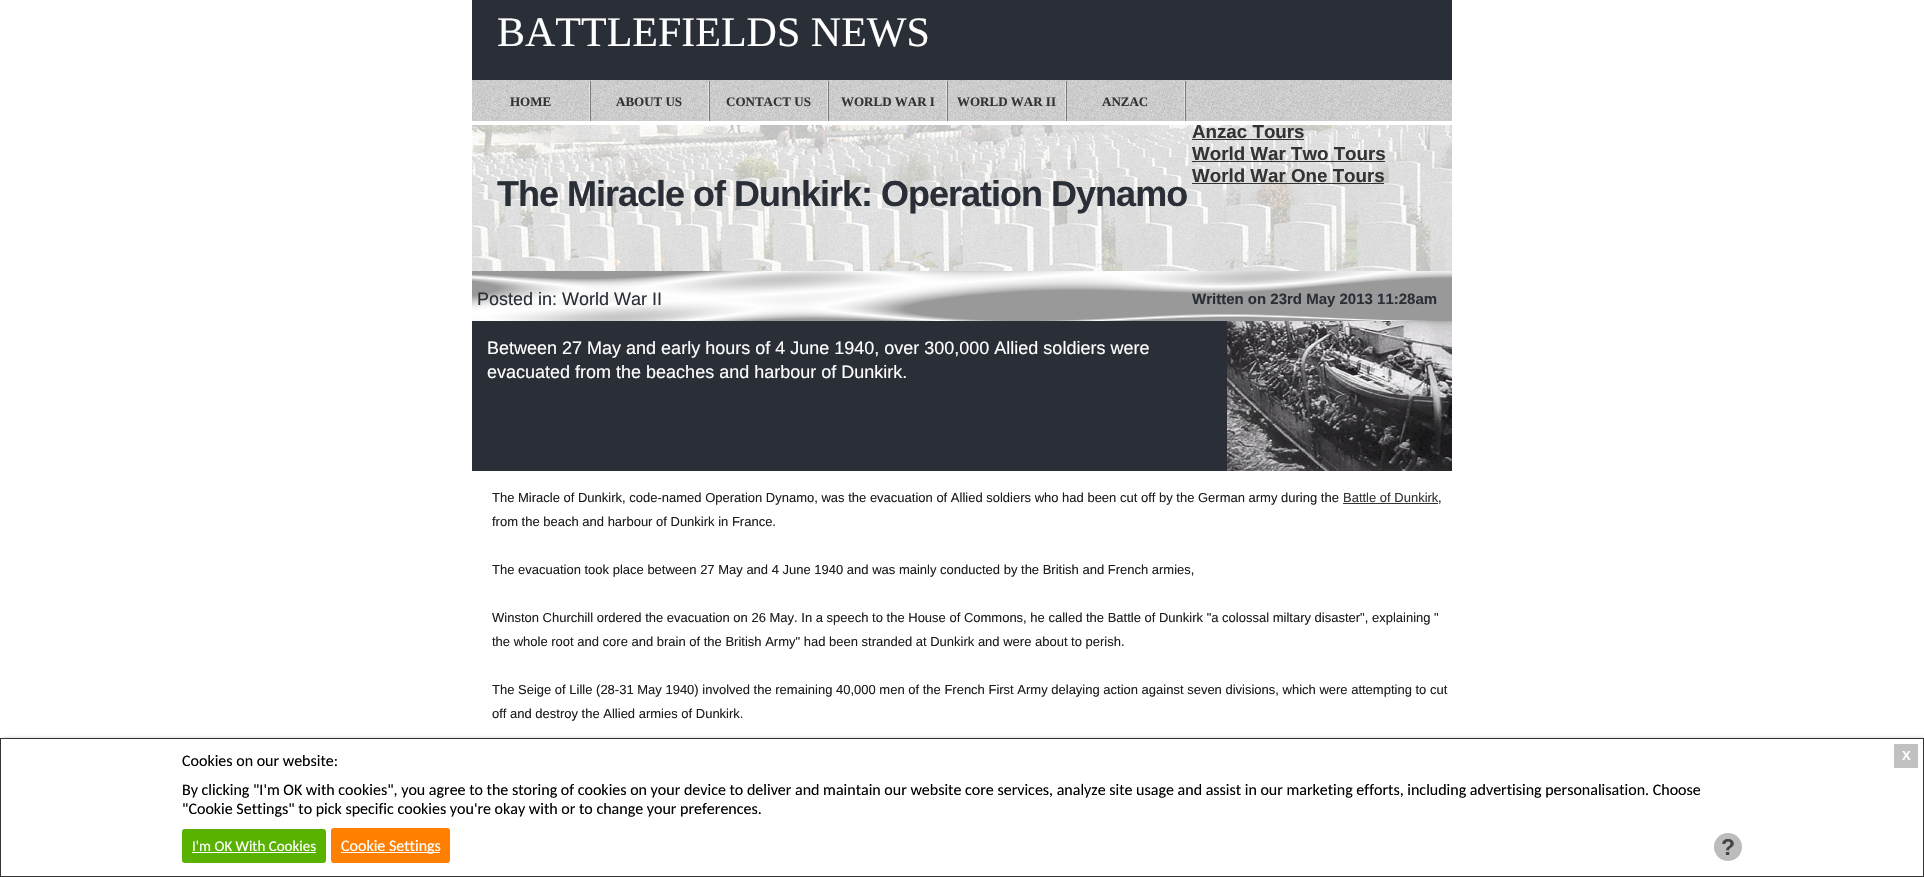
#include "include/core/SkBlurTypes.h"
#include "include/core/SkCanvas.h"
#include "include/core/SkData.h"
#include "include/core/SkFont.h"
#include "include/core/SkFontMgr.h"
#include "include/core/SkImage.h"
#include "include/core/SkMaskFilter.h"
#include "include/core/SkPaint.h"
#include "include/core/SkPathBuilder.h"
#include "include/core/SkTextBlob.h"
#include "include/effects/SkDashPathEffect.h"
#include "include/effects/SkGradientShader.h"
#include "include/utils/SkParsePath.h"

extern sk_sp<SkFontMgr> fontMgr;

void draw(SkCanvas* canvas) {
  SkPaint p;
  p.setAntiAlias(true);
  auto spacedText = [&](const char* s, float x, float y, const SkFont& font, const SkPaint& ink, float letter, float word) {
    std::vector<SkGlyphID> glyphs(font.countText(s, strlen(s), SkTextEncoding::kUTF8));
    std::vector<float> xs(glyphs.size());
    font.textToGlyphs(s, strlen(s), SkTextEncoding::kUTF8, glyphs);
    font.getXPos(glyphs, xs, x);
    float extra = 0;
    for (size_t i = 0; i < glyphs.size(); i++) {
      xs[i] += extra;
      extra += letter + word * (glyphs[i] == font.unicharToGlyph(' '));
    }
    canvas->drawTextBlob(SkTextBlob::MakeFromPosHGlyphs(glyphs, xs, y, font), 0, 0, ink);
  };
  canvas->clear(SK_ColorWHITE);
  p.setColor(SkColorSetRGB(41, 46, 55));
  canvas->drawRect(SkRect::MakeLTRB(472, 0, 1452, 80), p);
  canvas->drawImageRect(SkImages::DeferredFromEncodedData(SkData::MakeFromFileName("images/1.png")), SkRect::MakeLTRB(472, 80, 1452, 121), SkSamplingOptions());
  canvas->drawImageRect(SkImages::DeferredFromEncodedData(SkData::MakeFromFileName("images/2.png")), SkRect::MakeLTRB(589, 81, 591, 121), SkSamplingOptions());
  canvas->drawImageRect(SkImages::DeferredFromEncodedData(SkData::MakeFromFileName("images/3.png")), SkRect::MakeLTRB(708, 80, 710, 121), SkSamplingOptions());
  canvas->drawImageRect(SkImages::DeferredFromEncodedData(SkData::MakeFromFileName("images/3.png")), SkRect::MakeLTRB(827, 80, 829, 121), SkSamplingOptions());
  canvas->drawImageRect(SkImages::DeferredFromEncodedData(SkData::MakeFromFileName("images/3.png")), SkRect::MakeLTRB(946, 80, 948, 121), SkSamplingOptions());
  canvas->drawImageRect(SkImages::DeferredFromEncodedData(SkData::MakeFromFileName("images/3.png")), SkRect::MakeLTRB(1065, 80, 1067, 121), SkSamplingOptions());
  canvas->drawImageRect(SkImages::DeferredFromEncodedData(SkData::MakeFromFileName("images/3.png")), SkRect::MakeLTRB(1184, 80, 1186, 121), SkSamplingOptions());
  canvas->drawImageRect(SkImages::DeferredFromEncodedData(SkData::MakeFromFileName("images/4.png")), SkRect::MakeLTRB(472, 125, 1452, 271), SkSamplingOptions());
  p.setColor(SkColorSetRGB(51, 51, 51));
  canvas->drawRect(SkRect::MakeLTRB(1192, 139, 1304, 140), p);
  canvas->drawRect(SkRect::MakeLTRB(1192, 161, 1385, 162), p);
  canvas->drawRect(SkRect::MakeLTRB(1192, 183, 1384, 184), p);
  canvas->drawImageRect(SkImages::DeferredFromEncodedData(SkData::MakeFromFileName("images/5.png")), SkRect::MakeLTRB(472, 271, 1452, 321), SkSamplingOptions());
  p.setColor(SkColorSetRGB(41, 46, 55));
  canvas->drawRect(SkRect::MakeLTRB(472, 321, 1227, 471), p);
  canvas->drawImageRect(SkImages::DeferredFromEncodedData(SkData::MakeFromFileName("images/6.png")), SkRect::MakeLTRB(1227, 321, 1452, 471), SkSamplingOptions());
  p.setColor(SkColorSetRGB(51, 51, 51));
  canvas->drawRect(SkRect::MakeLTRB(1343, 503, 1438, 504), p);
  p.setColor(SK_ColorBLACK);
  p.setMaskFilter(SkMaskFilter::MakeBlur(kNormal_SkBlurStyle, 2.5f));
  canvas->drawRect(SkRect::MakeLTRB(3, 741, 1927, 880), p);
  p.setMaskFilter(nullptr);
  p.setColor(SK_ColorWHITE);
  canvas->drawRect(SkRect::MakeLTRB(0.5f, 738.5f, 1923.5f, 876.5f), p);
  p.setStyle(SkPaint::kStroke_Style);
  p.setStrokeWidth(1);
  p.setColor(SkColorSetRGB(51, 51, 51));
  canvas->drawRect(SkRect::MakeLTRB(0.5f, 738.5f, 1923.5f, 876.5f), p);
  p.setStyle(SkPaint::kFill_Style);
  p.setColor(SkColorSetRGB(193, 193, 193));
  canvas->drawRect(SkRect::MakeLTRB(1894, 744, 1918, 768), p);
  p.setColor(SkColorSetRGB(89, 178, 0));
  canvas->drawRoundRect(SkRect::MakeLTRB(182, 829, 326, 863), 3, 3, p);
  p.setColor(SK_ColorWHITE);
  canvas->drawRect(SkRect::MakeLTRB(192, 852, 316, 853), p);
  p.setColor(SkColorSetRGB(255, 127, 0));
  canvas->drawRoundRect(SkRect::MakeLTRB(331, 828, 450, 863), 3, 3, p);
  p.setColor(SK_ColorWHITE);
  canvas->drawRect(SkRect::MakeLTRB(341, 852, 440, 853), p);
  p.setColor(SkColorSetRGB(188, 188, 188));
  canvas->drawCircle(1728, 847, 14, p);
  SkFont font1(fontMgr->matchFamilyStyle("Liberation Serif", SkFontStyle::Normal()), 42);
  font1.setSubpixel(true);
  p.setColor(SK_ColorWHITE);
  canvas->drawString("BATTLEFIELDS NEWS", 497, 46, font1, p);
  SkFont font2(fontMgr->matchFamilyStyle("Liberation Serif", SkFontStyle::Bold()), 13);
  font2.setSubpixel(true);
  p.setColor(SkColorSetRGB(51, 51, 51));
  canvas->drawString("HOME", 510, 106, font2, p);
  canvas->drawString("ABOUT US", 616, 106, font2, p);
  canvas->drawString("CONTACT US", 726, 106, font2, p);
  canvas->drawString("WORLD WAR I", 841, 106, font2, p);
  canvas->drawString("WORLD WAR II", 957, 106, font2, p);
  canvas->drawString("ANZAC", 1102, 106, font2, p);
  SkFont font3(fontMgr->matchFamilyStyle("Liberation Sans", SkFontStyle::Bold()), 18.75f);
  font3.setSubpixel(true);
  canvas->drawString("Anzac Tours", 1192, 138, font3, p);
  canvas->drawString("World War Two Tours", 1192, 160, font3, p);
  canvas->drawString("World War One Tours", 1192, 182, font3, p);
  SkFont font4(fontMgr->matchFamilyStyle("Liberation Sans", SkFontStyle::Bold()), 36);
  font4.setSubpixel(true);
  p.setColor(SkColorSetRGB(41, 46, 55));
  spacedText("The Miracle of Dunkirk: Operation Dynamo", 497, 206, font4, p, -1, 0);
  SkFont font5(fontMgr->matchFamilyStyle("Liberation Sans", SkFontStyle::Normal()), 18);
  font5.setSubpixel(true);
  canvas->drawString("Posted in: World War II", 477, 305, font5, p);
  SkFont font6(fontMgr->matchFamilyStyle("Liberation Sans", SkFontStyle::Bold()), 15);
  font6.setSubpixel(true);
  canvas->drawString("Written on 23rd May 2013 11:28am", 1192, 304, font6, p);
  p.setColor(SK_ColorWHITE);
  canvas->drawString("Between 27 May and early hours of 4 June 1940, over 300,000 Allied soldiers were", 487, 354, font5, p);
  canvas->drawString("evacuated from the beaches and harbour of Dunkirk.", 487, 378, font5, p);
  SkFont font7(fontMgr->matchFamilyStyle("Liberation Sans", SkFontStyle::Normal()), 13);
  font7.setSubpixel(true);
  p.setColor(SkColorSetRGB(29, 29, 29));
  canvas->drawString("The Miracle of Dunkirk, code-named Operation Dynamo, was the evacuation of Allied soldiers who had been cut off by the German army during the", 492, 502, font7, p);
  p.setColor(SkColorSetRGB(51, 51, 51));
  canvas->drawString("Battle of Dunkirk", 1343, 502, font7, p);
  p.setColor(SkColorSetRGB(29, 29, 29));
  canvas->drawString(",", 1438, 502, font7, p);
  canvas->drawString("from the beach and harbour of Dunkirk in France.", 492, 526, font7, p);
  canvas->drawString("The evacuation took place between 27 May and 4 June 1940 and was mainly conducted by the British and French armies,", 492, 574, font7, p);
  canvas->drawString("Winston Churchill ordered the evacuation on 26 May. In a speech to the House of Commons, he called the Battle of Dunkirk \"a colossal miltary disaster\", explaining \"", 492, 622, font7, p);
  canvas->drawString("the whole root and core and brain of the British Army\" had been stranded at Dunkirk and were about to perish.", 492, 646, font7, p);
  canvas->drawString("The Seige of Lille (28-31 May 1940) involved the remaining 40,000 men of the French First Army delaying action against seven divisions, which were attempting to cut", 492, 694, font7, p);
  canvas->drawString("off and destroy the Allied armies of Dunkirk.", 492, 718, font7, p);
  SkFont font8(fontMgr->matchFamilyStyle("Carlito", SkFontStyle::Normal()), 16);
  font8.setSubpixel(true);
  p.setColor(SK_ColorBLACK);
  canvas->drawString("Cookies on our website:", 182, 766, font8, p);
  SkFont font9(fontMgr->matchFamilyStyle("Liberation Sans", SkFontStyle::Bold()), 13);
  font9.setSubpixel(true);
  p.setColor(SK_ColorWHITE);
  canvas->drawString("X", 1902, 760, font9, p);
  p.setColor(SK_ColorBLACK);
  canvas->drawString("By clicking \"I'm OK with cookies\", you agree to the storing of cookies on your device to deliver and maintain our website core services, analyze site usage and assist in our marketing efforts, including advertising personalisation. Choose", 182, 795, font8, p);
  canvas->drawString("\"Cookie Settings\" to pick specific cookies you're okay with or to change your preferences.", 182, 814, font8, p);
  SkFont font10(fontMgr->matchFamilyStyle("Carlito", SkFontStyle::Normal()), 15);
  font10.setSubpixel(true);
  p.setColor(SK_ColorWHITE);
  canvas->drawString("I'm OK With Cookies", 192, 851, font10, p);
  canvas->drawString("Cookie Settings", 341, 851, font8, p);
  SkFont font11(fontMgr->matchFamilyStyle("Liberation Sans", SkFontStyle::Bold()), 23);
  font11.setSubpixel(true);
  p.setColor(SkColorSetRGB(68, 68, 68));
  canvas->drawString("?", 1721, 855, font11, p);
}
